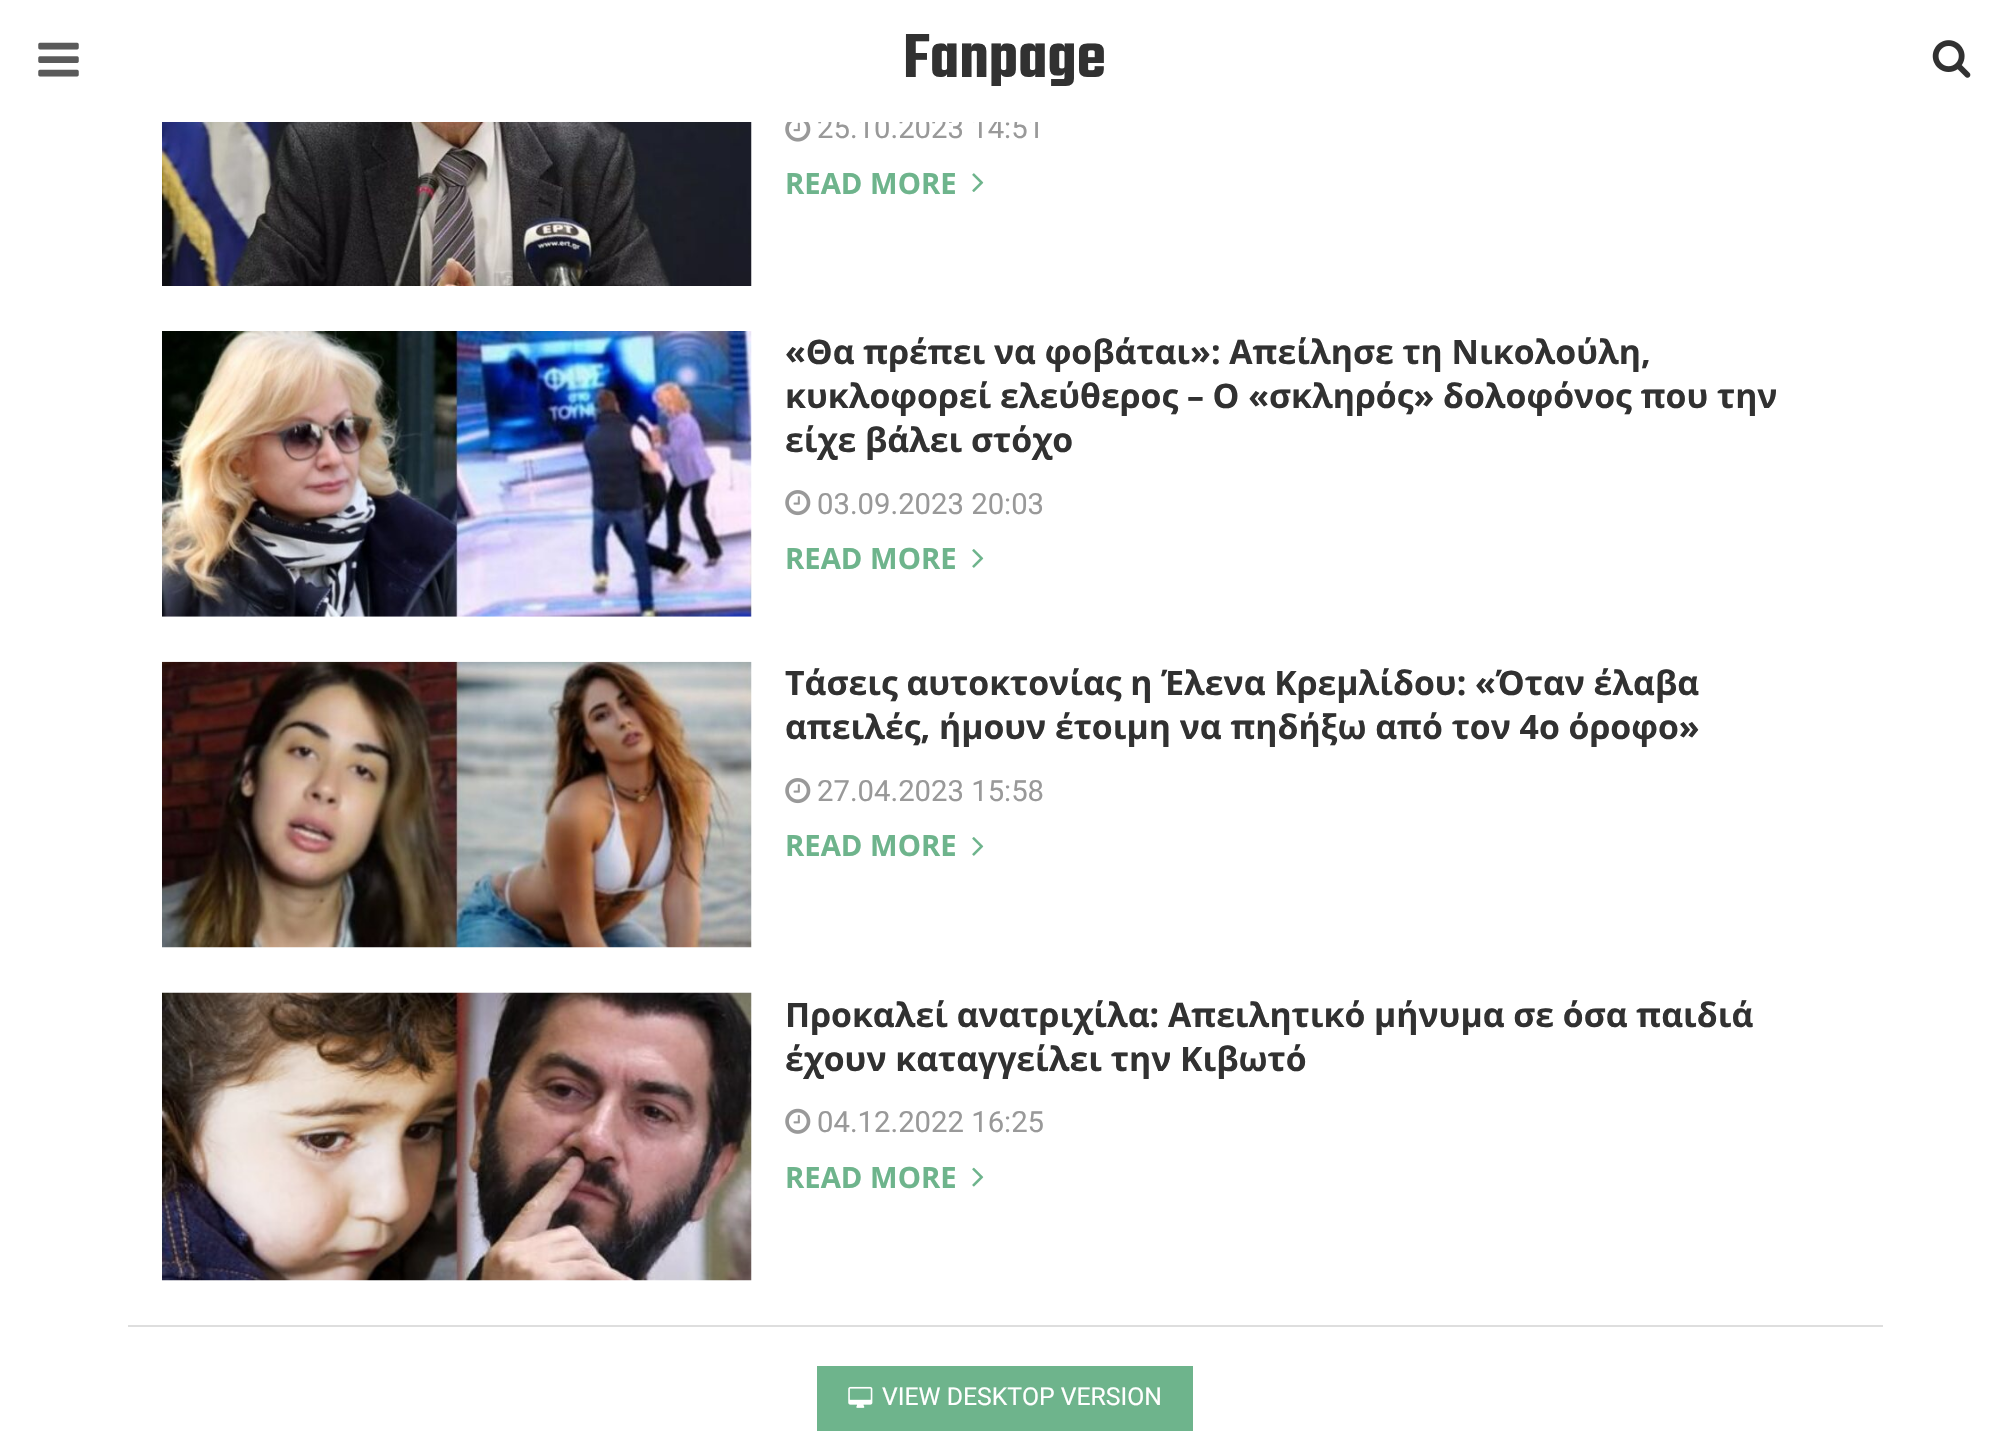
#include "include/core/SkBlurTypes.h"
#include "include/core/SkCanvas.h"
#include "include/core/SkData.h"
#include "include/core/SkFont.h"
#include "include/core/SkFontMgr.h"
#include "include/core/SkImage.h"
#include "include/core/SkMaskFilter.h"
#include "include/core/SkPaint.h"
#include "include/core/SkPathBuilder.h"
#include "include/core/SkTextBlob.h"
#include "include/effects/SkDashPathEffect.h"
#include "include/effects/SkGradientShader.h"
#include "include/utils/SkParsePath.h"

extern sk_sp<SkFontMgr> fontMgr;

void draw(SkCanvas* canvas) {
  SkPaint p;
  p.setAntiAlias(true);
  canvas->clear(SK_ColorWHITE);
  canvas->drawImageRect(SkImages::DeferredFromEncodedData(SkData::MakeFromFileName("images/1.png")), SkRect::MakeLTRB(38, 42, 79, 77), SkSamplingOptions());
  canvas->drawImageRect(SkImages::DeferredFromEncodedData(SkData::MakeFromFileName("images/2.png")), SkRect::MakeLTRB(1932, 40, 1971, 78), SkSamplingOptions());
  canvas->drawImageRect(SkImages::DeferredFromEncodedData(SkData::MakeFromFileName("images/3.png")), SkRect::MakeLTRB(162, 122, 752, 286), SkSamplingOptions());
  canvas->drawImageRect(SkImages::DeferredFromEncodedData(SkData::MakeFromFileName("images/4.png")), SkRect::MakeLTRB(785, 122, 811, 142), SkSamplingOptions());
  canvas->drawImageRect(SkImages::DeferredFromEncodedData(SkData::MakeFromFileName("images/5.png")), SkRect::MakeLTRB(972, 173, 984, 192), SkSamplingOptions());
  canvas->drawImageRect(SkImages::DeferredFromEncodedData(SkData::MakeFromFileName("images/6.png")), SkRect::MakeLTRB(162, 331, 752, 617), SkSamplingOptions());
  canvas->drawImageRect(SkImages::DeferredFromEncodedData(SkData::MakeFromFileName("images/7.png")), SkRect::MakeLTRB(785, 490, 811, 516), SkSamplingOptions());
  canvas->drawImageRect(SkImages::DeferredFromEncodedData(SkData::MakeFromFileName("images/8.png")), SkRect::MakeLTRB(972, 549, 984, 568), SkSamplingOptions());
  canvas->drawImageRect(SkImages::DeferredFromEncodedData(SkData::MakeFromFileName("images/9.png")), SkRect::MakeLTRB(162, 661, 752, 948), SkSamplingOptions());
  canvas->drawImageRect(SkImages::DeferredFromEncodedData(SkData::MakeFromFileName("images/7.png")), SkRect::MakeLTRB(785, 778, 811, 804), SkSamplingOptions());
  canvas->drawImageRect(SkImages::DeferredFromEncodedData(SkData::MakeFromFileName("images/8.png")), SkRect::MakeLTRB(972, 837, 984, 856), SkSamplingOptions());
  canvas->drawImageRect(SkImages::DeferredFromEncodedData(SkData::MakeFromFileName("images/10.png")), SkRect::MakeLTRB(162, 992, 752, 1281), SkSamplingOptions());
  canvas->drawImageRect(SkImages::DeferredFromEncodedData(SkData::MakeFromFileName("images/11.png")), SkRect::MakeLTRB(785, 1108, 811, 1134), SkSamplingOptions());
  canvas->drawImageRect(SkImages::DeferredFromEncodedData(SkData::MakeFromFileName("images/12.png")), SkRect::MakeLTRB(972, 1167, 984, 1187), SkSamplingOptions());
  p.setColor(SkColorSetRGB(222, 222, 222));
  canvas->drawRect(SkRect::MakeLTRB(128, 1325, 1883, 1327), p);
  p.setColor(SkColorSetRGB(110, 180, 140));
  canvas->drawRect(SkRect::MakeLTRB(817, 1366, 1193, 1431), p);
  canvas->drawImageRect(SkImages::DeferredFromEncodedData(SkData::MakeFromFileName("images/13.png")), SkRect::MakeLTRB(848, 1386, 873, 1408), SkSamplingOptions());
  SkFont font1(fontMgr->matchFamilyStyle("Teko", SkFontStyle(600, SkFontStyle::kNormal_Width, SkFontStyle::kUpright_Slant)), 67.5f);
  font1.setSubpixel(true);
  p.setColor(SkColorSetRGB(49, 49, 49));
  canvas->drawString("Fanpage", 903, 77, font1, p);
  SkFont font2(fontMgr->matchFamilyStyle("Roboto", SkFontStyle::Normal()), 29.25f);
  font2.setSubpixel(true);
  p.setColor(SkColorSetRGB(153, 153, 153));
  canvas->drawString("25.10.2023 14:51", 817, 138, font2, p);
  p.setColor(SK_ColorWHITE);
  canvas->drawRect(SkRect::MakeLTRB(818, 116, 1039, 122), p);
  SkFont font3(fontMgr->matchFamilyStyle("Open Sans", SkFontStyle::Bold()), 29.25f);
  font3.setSubpixel(true);
  p.setColor(SkColorSetRGB(110, 180, 140));
  canvas->drawString("READ MORE", 785, 194, font3, p);
  SkFont font4(fontMgr->matchFamilyStyle("Open Sans", SkFontStyle::Bold()), 33.75f);
  font4.setSubpixel(true);
  p.setColor(SkColorSetRGB(49, 49, 49));
  canvas->drawString("«Θα πρέπει να φοβάται»: Απείλησε τη Νικολούλη,", 785, 364, font4, p);
  canvas->drawString("κυκλοφορεί ελεύθερος – Ο «σκληρός» δολοφόνος που την", 785, 408, font4, p);
  canvas->drawString("είχε βάλει στόχο", 785, 452, font4, p);
  p.setColor(SkColorSetRGB(153, 153, 153));
  canvas->drawString("03.09.2023 20:03", 817, 514, font2, p);
  p.setColor(SkColorSetRGB(110, 180, 140));
  canvas->drawString("READ MORE", 785, 569, font3, p);
  p.setColor(SkColorSetRGB(49, 49, 49));
  canvas->drawString("Τάσεις αυτοκτονίας η Έλενα Κρεμλίδου: «Όταν έλαβα", 785, 695, font4, p);
  canvas->drawString("απειλές, ήμουν έτοιμη να πηδήξω από τον 4ο όροφο»", 785, 739, font4, p);
  p.setColor(SkColorSetRGB(153, 153, 153));
  canvas->drawString("27.04.2023 15:58", 817, 801, font2, p);
  p.setColor(SkColorSetRGB(110, 180, 140));
  canvas->drawString("READ MORE", 785, 856, font3, p);
  p.setColor(SkColorSetRGB(49, 49, 49));
  canvas->drawString("Προκαλεί ανατριχίλα: Απειλητικό μήνυμα σε όσα παιδιά", 785, 1027, font4, p);
  canvas->drawString("έχουν καταγγείλει την Κιβωτό", 785, 1071, font4, p);
  p.setColor(SkColorSetRGB(153, 153, 153));
  canvas->drawString("04.12.2022 16:25", 817, 1132, font2, p);
  p.setColor(SkColorSetRGB(110, 180, 140));
  canvas->drawString("READ MORE", 785, 1188, font3, p);
  SkFont font5(fontMgr->matchFamilyStyle("Roboto", SkFontStyle::Normal()), 24.75f);
  font5.setSubpixel(true);
  p.setColor(SK_ColorWHITE);
  canvas->drawString("VIEW DESKTOP VERSION", 882, 1405, font5, p);
}
